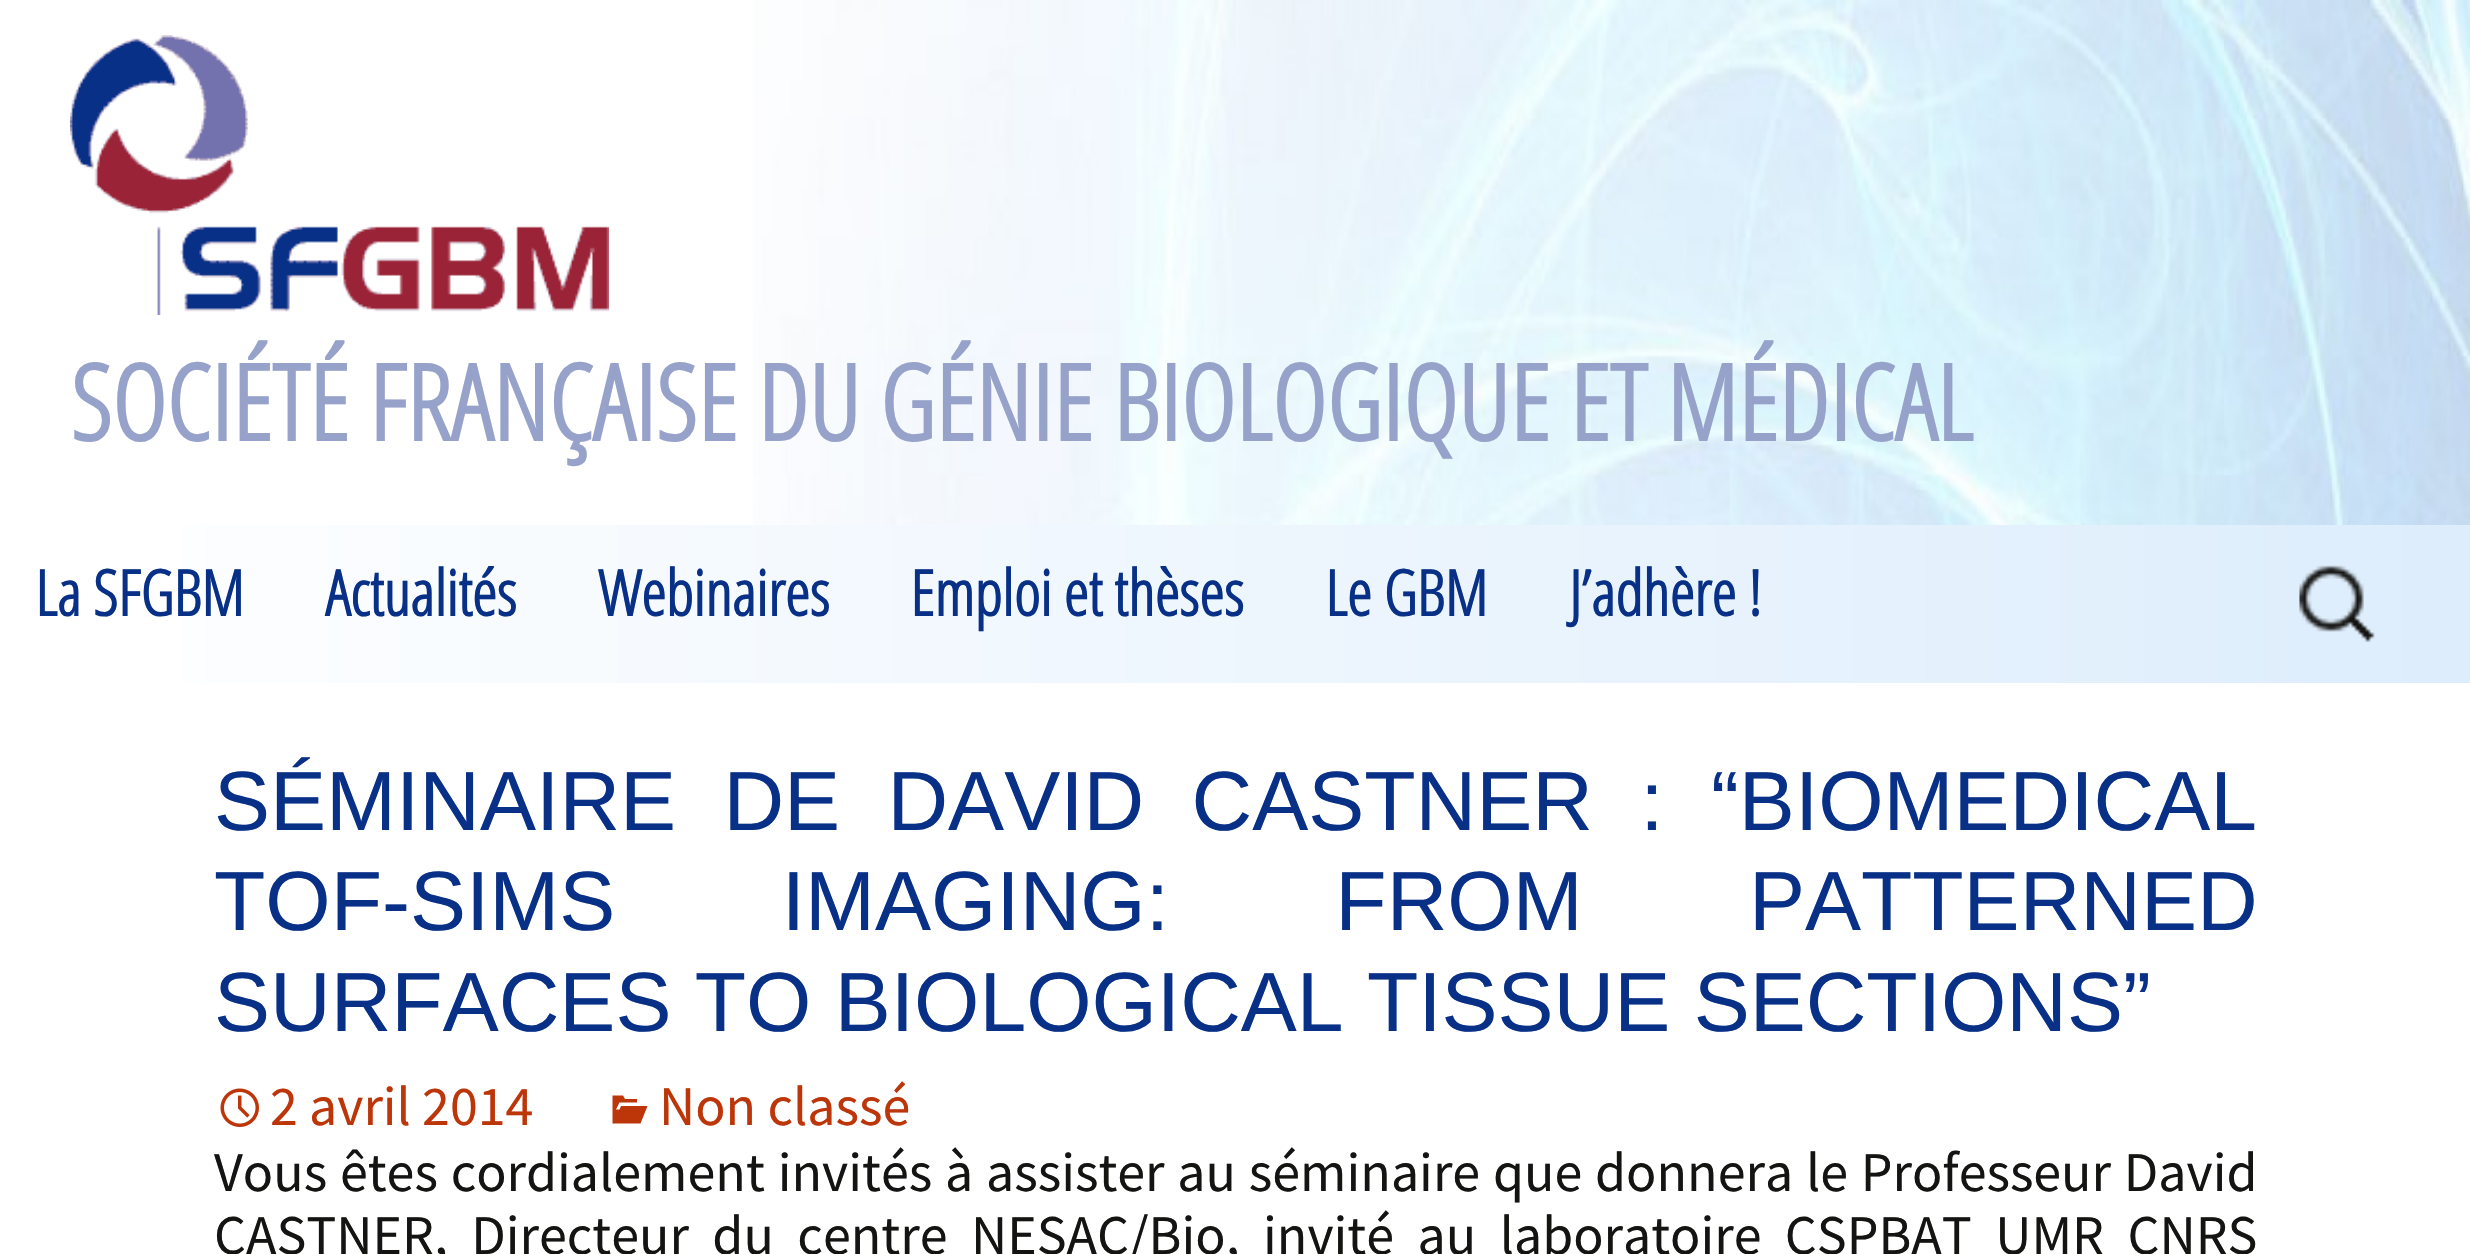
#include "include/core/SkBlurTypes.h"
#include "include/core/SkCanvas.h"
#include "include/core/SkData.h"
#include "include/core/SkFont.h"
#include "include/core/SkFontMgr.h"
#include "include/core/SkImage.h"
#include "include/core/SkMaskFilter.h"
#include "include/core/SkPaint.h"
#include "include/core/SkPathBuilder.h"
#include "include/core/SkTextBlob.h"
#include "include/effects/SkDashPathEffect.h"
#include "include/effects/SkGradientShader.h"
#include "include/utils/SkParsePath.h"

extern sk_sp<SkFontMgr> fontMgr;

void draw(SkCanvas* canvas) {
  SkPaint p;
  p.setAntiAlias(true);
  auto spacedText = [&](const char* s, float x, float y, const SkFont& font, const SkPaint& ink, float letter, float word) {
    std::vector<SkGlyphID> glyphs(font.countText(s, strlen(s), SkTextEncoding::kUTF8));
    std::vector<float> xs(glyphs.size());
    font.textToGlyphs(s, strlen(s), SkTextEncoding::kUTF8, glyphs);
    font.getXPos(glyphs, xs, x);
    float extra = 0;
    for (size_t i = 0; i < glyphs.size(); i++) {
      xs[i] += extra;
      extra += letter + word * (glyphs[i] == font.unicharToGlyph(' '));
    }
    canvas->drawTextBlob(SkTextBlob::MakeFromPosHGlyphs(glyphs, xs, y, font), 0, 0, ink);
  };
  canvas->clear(SK_ColorWHITE);
  canvas->drawImageRect(SkImages::DeferredFromEncodedData(SkData::MakeFromFileName("images/1.png")), SkRect::MakeLTRB(753, 0, 2470, 525), SkSamplingOptions());
  canvas->drawImageRect(SkImages::DeferredFromEncodedData(SkData::MakeFromFileName("images/2.png")), SkRect::MakeLTRB(70, 35, 609, 315), SkSamplingOptions());
  {
    const SkColor colors[] = {SK_ColorWHITE, SkColorSetRGB(221, 237, 252)};
    const float stops[] = {0, 1};
    const SkPoint ends[] = {{0, 604}, {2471, 604}};
    p.setShader(SkGradientShader::MakeLinear(ends, colors, stops, 2, SkTileMode::kClamp));
    p.setAlpha(255);
  }
  canvas->drawRect(SkRect::MakeLTRB(182, 525, 2470, 683), p);
  canvas->drawImageRect(SkImages::DeferredFromEncodedData(SkData::MakeFromFileName("images/3.png")), SkRect::MakeLTRB(2299, 565, 2375, 642), SkSamplingOptions());
  canvas->drawImageRect(SkImages::DeferredFromEncodedData(SkData::MakeFromFileName("images/4.png")), SkRect::MakeLTRB(220, 1088, 259, 1127), SkSamplingOptions());
  p.setShader(nullptr);
  p.setColor(SkColorSetRGB(188, 54, 10));
  canvas->drawPath(SkPathBuilder().moveTo(612.5f, 1123.5f).lineTo(612.5f, 1095.5f).lineTo(623, 1095.5f).lineTo(625, 1099).lineTo(637, 1099).lineTo(637, 1102.5f).lineTo(619.5f, 1102.5f).lineTo(616, 1109.5f).lineTo(619.5f, 1109.5f).lineTo(621, 1106).lineTo(647.5f, 1106).lineTo(640.5f, 1123.5f).close().detach(), p);
  SkFont font1(fontMgr->matchFamilyStyle("Open Sans Condensed", SkFontStyle::Bold()), 105);
  font1.setSubpixel(true);
  p.setColor(SkColorSetRGB(151, 162, 202));
  canvas->drawString("SOCIÉTÉ FRANÇAISE DU GÉNIE BIOLOGIQUE ET MÉDICAL", 70, 441, font1, p);
  SkFont font2(fontMgr->matchFamilyStyle("Open Sans Condensed", SkFontStyle::Bold()), 63);
  font2.setSubpixel(true);
  p.setColor(SkColorSetRGB(8, 48, 135));
  canvas->drawString("La SFGBM", 35, 616, font2, p);
  canvas->drawString("Actualités", 325, 616, font2, p);
  canvas->drawString("Webinaires", 598, 616, font2, p);
  canvas->drawString("Emploi et thèses", 910, 616, font2, p);
  canvas->drawString("Le GBM", 1325, 616, font2, p);
  canvas->drawString("J’adhère !", 1569, 616, font2, p);
  SkFont font3(fontMgr->matchFamilyStyle("Liberation Sans", SkFontStyle::Normal()), 84);
  font3.setSubpixel(true);
  spacedText("SÉMINAIRE DE DAVID CASTNER : “BIOMEDICAL", 214, 830, font3, p, 0, 24);
  spacedText("TOF-SIMS IMAGING: FROM PATTERNED", 214, 930, font3, p, 0, 143);
  canvas->drawString("SURFACES TO BIOLOGICAL TISSUE SECTIONS”", 214, 1031, font3, p);
  SkFont font4(fontMgr->matchFamilyStyle("Source Sans Pro", SkFontStyle::Normal()), 56);
  font4.setSubpixel(true);
  p.setColor(SkColorSetRGB(188, 54, 10));
  canvas->drawString("2 avril 2014", 270, 1125, font4, p);
  canvas->drawString("Non classé", 659, 1125, font4, p);
  p.setColor(SkColorSetRGB(20, 20, 18));
  spacedText("Vous êtes cordialement invités à assister au séminaire que donnera le Professeur David", 214, 1191, font4, p, 0, 1.6f);
  spacedText("CASTNER, Directeur du centre NESAC/Bio, invité au laboratoire CSPBAT UMR CNRS", 214, 1254, font4, p, 0, 12.25f);
}
